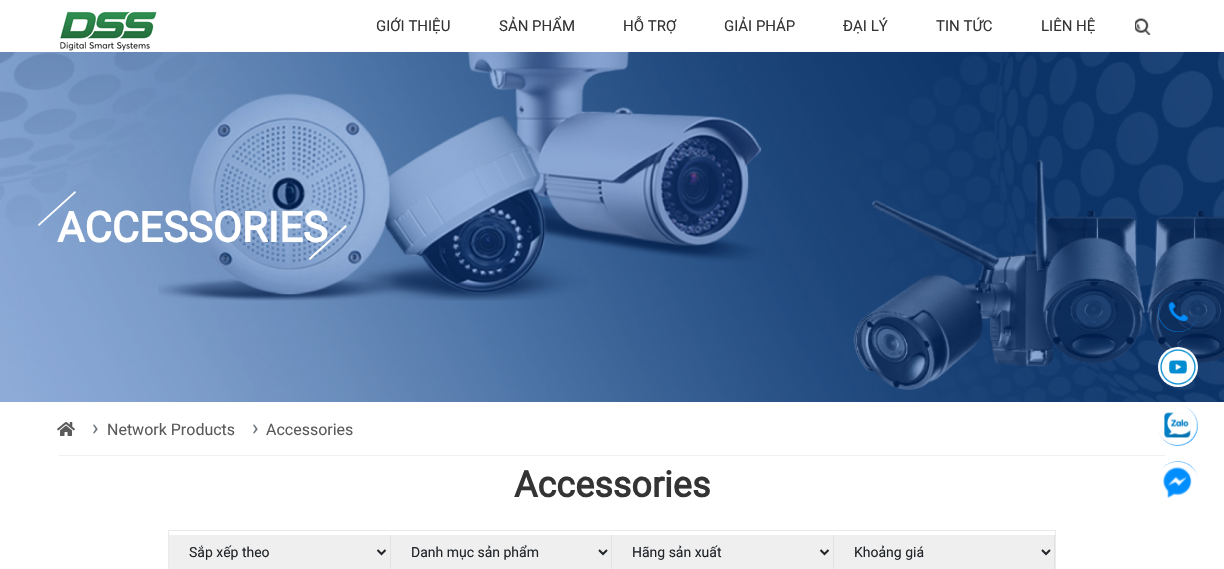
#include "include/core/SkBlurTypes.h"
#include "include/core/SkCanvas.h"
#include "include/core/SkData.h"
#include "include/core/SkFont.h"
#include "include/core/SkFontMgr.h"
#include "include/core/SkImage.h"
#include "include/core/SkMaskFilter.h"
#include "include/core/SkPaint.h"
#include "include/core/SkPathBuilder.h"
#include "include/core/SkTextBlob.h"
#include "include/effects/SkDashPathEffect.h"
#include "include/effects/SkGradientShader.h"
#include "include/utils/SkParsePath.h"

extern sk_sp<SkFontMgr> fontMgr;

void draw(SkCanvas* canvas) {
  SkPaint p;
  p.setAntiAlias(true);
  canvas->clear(SK_ColorWHITE);
  canvas->drawImageRect(SkImages::DeferredFromEncodedData(SkData::MakeFromFileName("images/1.png")), SkRect::MakeLTRB(60, 11, 157, 51), SkSamplingOptions());
  canvas->drawImageRect(SkImages::DeferredFromEncodedData(SkData::MakeFromFileName("images/2.png")), SkRect::MakeLTRB(1135, 18, 1151, 35), SkSamplingOptions());
  canvas->drawImageRect(SkImages::DeferredFromEncodedData(SkData::MakeFromFileName("images/3.png")), SkRect::MakeLTRB(0, 52, 1224, 402), SkSamplingOptions());
  p.setColor(SK_ColorWHITE);
  canvas->drawPath(SkPathBuilder().moveTo(76, 192.5f).lineTo(39, 226).lineTo(38, 224.5f).lineTo(75, 191).close().detach(), p);
  canvas->drawPath(SkPathBuilder().moveTo(347, 226.5f).lineTo(310, 260).lineTo(308.5f, 258.5f).lineTo(345.5f, 225).close().detach(), p);
  p.setColor(SkColorSetRGB(240, 240, 240));
  canvas->drawRect(SkRect::MakeLTRB(59, 455, 1165, 456), p);
  canvas->drawImageRect(SkImages::DeferredFromEncodedData(SkData::MakeFromFileName("images/4.png")), SkRect::MakeLTRB(57, 422, 75, 436), SkSamplingOptions());
  p.setStyle(SkPaint::kStroke_Style);
  p.setStrokeWidth(1);
  p.setColor(SkColorSetRGB(234, 234, 234));
  canvas->drawRect(SkRect::MakeLTRB(168.5f, 530.5f, 1055.5f, 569.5f), p);
  p.setStyle(SkPaint::kFill_Style);
  p.setColor(SkColorSetRGB(239, 239, 239));
  canvas->drawRect(SkRect::MakeLTRB(169, 535, 390, 569), p);
  p.setColor(SkColorSetRGB(226, 226, 226));
  canvas->drawRect(SkRect::MakeLTRB(390, 535, 391, 569), p);
  p.setStyle(SkPaint::kStroke_Style);
  p.setStrokeWidth(2);
  p.setColor(SkColorSetRGB(33, 37, 41));
  canvas->drawPath(SkPathBuilder().moveTo(377.5f, 550).lineTo(381.5f, 554).lineTo(385.5f, 550).detach(), p);
  p.setStyle(SkPaint::kFill_Style);
  p.setColor(SkColorSetRGB(239, 239, 239));
  canvas->drawRect(SkRect::MakeLTRB(391, 535, 611, 569), p);
  p.setColor(SkColorSetRGB(226, 226, 226));
  canvas->drawRect(SkRect::MakeLTRB(611, 535, 612, 569), p);
  p.setStyle(SkPaint::kStroke_Style);
  p.setColor(SkColorSetRGB(33, 37, 41));
  canvas->drawPath(SkPathBuilder().moveTo(599, 550).lineTo(603, 554).lineTo(607, 550).detach(), p);
  p.setStyle(SkPaint::kFill_Style);
  p.setColor(SkColorSetRGB(239, 239, 239));
  canvas->drawRect(SkRect::MakeLTRB(612, 535, 833, 569), p);
  p.setColor(SkColorSetRGB(226, 226, 226));
  canvas->drawRect(SkRect::MakeLTRB(833, 535, 834, 569), p);
  p.setStyle(SkPaint::kStroke_Style);
  p.setColor(SkColorSetRGB(33, 37, 41));
  canvas->drawPath(SkPathBuilder().moveTo(820.5f, 550).lineTo(824.5f, 554).lineTo(828.5f, 550).detach(), p);
  p.setStyle(SkPaint::kFill_Style);
  p.setColor(SkColorSetRGB(239, 239, 239));
  canvas->drawRect(SkRect::MakeLTRB(834, 535, 1054, 569), p);
  p.setColor(SkColorSetRGB(226, 226, 226));
  canvas->drawRect(SkRect::MakeLTRB(1054, 535, 1055, 569), p);
  p.setStyle(SkPaint::kStroke_Style);
  p.setColor(SkColorSetRGB(33, 37, 41));
  canvas->drawPath(SkPathBuilder().moveTo(1042, 550).lineTo(1046, 554).lineTo(1050, 550).detach(), p);
  canvas->drawImageRect(SkImages::DeferredFromEncodedData(SkData::MakeFromFileName("images/5.png")), SkRect::MakeLTRB(1158, 292, 1198, 332), SkSamplingOptions());
  canvas->drawImageRect(SkImages::DeferredFromEncodedData(SkData::MakeFromFileName("images/6.png")), SkRect::MakeLTRB(1158, 347, 1198, 387), SkSamplingOptions());
  canvas->drawImageRect(SkImages::DeferredFromEncodedData(SkData::MakeFromFileName("images/7.png")), SkRect::MakeLTRB(1158, 406, 1198, 446), SkSamplingOptions());
  canvas->drawImageRect(SkImages::DeferredFromEncodedData(SkData::MakeFromFileName("images/8.png")), SkRect::MakeLTRB(1161, 461, 1198, 498), SkSamplingOptions());
  SkFont font1(fontMgr->matchFamilyStyle("Roboto", SkFontStyle::Normal()), 15);
  font1.setSubpixel(true);
  p.setStyle(SkPaint::kFill_Style);
  p.setColor(SkColorSetRGB(52, 52, 52));
  canvas->drawString("GIỚI THIỆU", 376, 31, font1, p);
  canvas->drawString("SẢN PHẨM", 499, 31, font1, p);
  canvas->drawString("HỖ TRỢ", 623, 31, font1, p);
  canvas->drawString("GIẢI PHÁP", 724, 31, font1, p);
  canvas->drawString("ĐẠI LÝ", 843, 31, font1, p);
  canvas->drawString("TIN TỨC", 936, 31, font1, p);
  canvas->drawString("LIÊN HỆ", 1041, 31, font1, p);
  SkFont font2(fontMgr->matchFamilyStyle("Roboto", SkFontStyle::Bold()), 42);
  font2.setSubpixel(true);
  p.setColor(SK_ColorWHITE);
  canvas->drawString("ACCESSORIES", 57, 242, font2, p);
  SkFont font3(fontMgr->matchFamilyStyle("Roboto", SkFontStyle::Normal()), 22);
  font3.setSubpixel(true);
  p.setColor(SkColorSetRGB(108, 117, 125));
  canvas->drawString("›", 92, 435, font3, p);
  SkFont font4(fontMgr->matchFamilyStyle("Roboto", SkFontStyle::Normal()), 16);
  font4.setSubpixel(true);
  p.setColor(SkColorSetRGB(90, 90, 90));
  canvas->drawString("Network Products", 107, 435, font4, p);
  p.setColor(SkColorSetRGB(108, 117, 125));
  canvas->drawString("›", 252, 435, font3, p);
  p.setColor(SkColorSetRGB(90, 90, 90));
  canvas->drawString("Accessories", 266, 435, font4, p);
  SkFont font5(fontMgr->matchFamilyStyle("Roboto", SkFontStyle::Bold()), 36);
  font5.setSubpixel(true);
  p.setColor(SkColorSetRGB(52, 52, 52));
  canvas->drawString("Accessories", 514, 497, font5, p);
  SkFont font6(fontMgr->matchFamilyStyle("Roboto", SkFontStyle::Normal()), 14);
  font6.setSubpixel(true);
  p.setColor(SkColorSetRGB(33, 37, 41));
  canvas->drawString("Sắp xếp theo", 189, 557, font6, p);
  canvas->drawString("Danh mục sản phẩm", 411, 557, font6, p);
  canvas->drawString("Hãng sản xuất", 632, 557, font6, p);
  canvas->drawString("Khoảng giá", 854, 557, font6, p);
}
